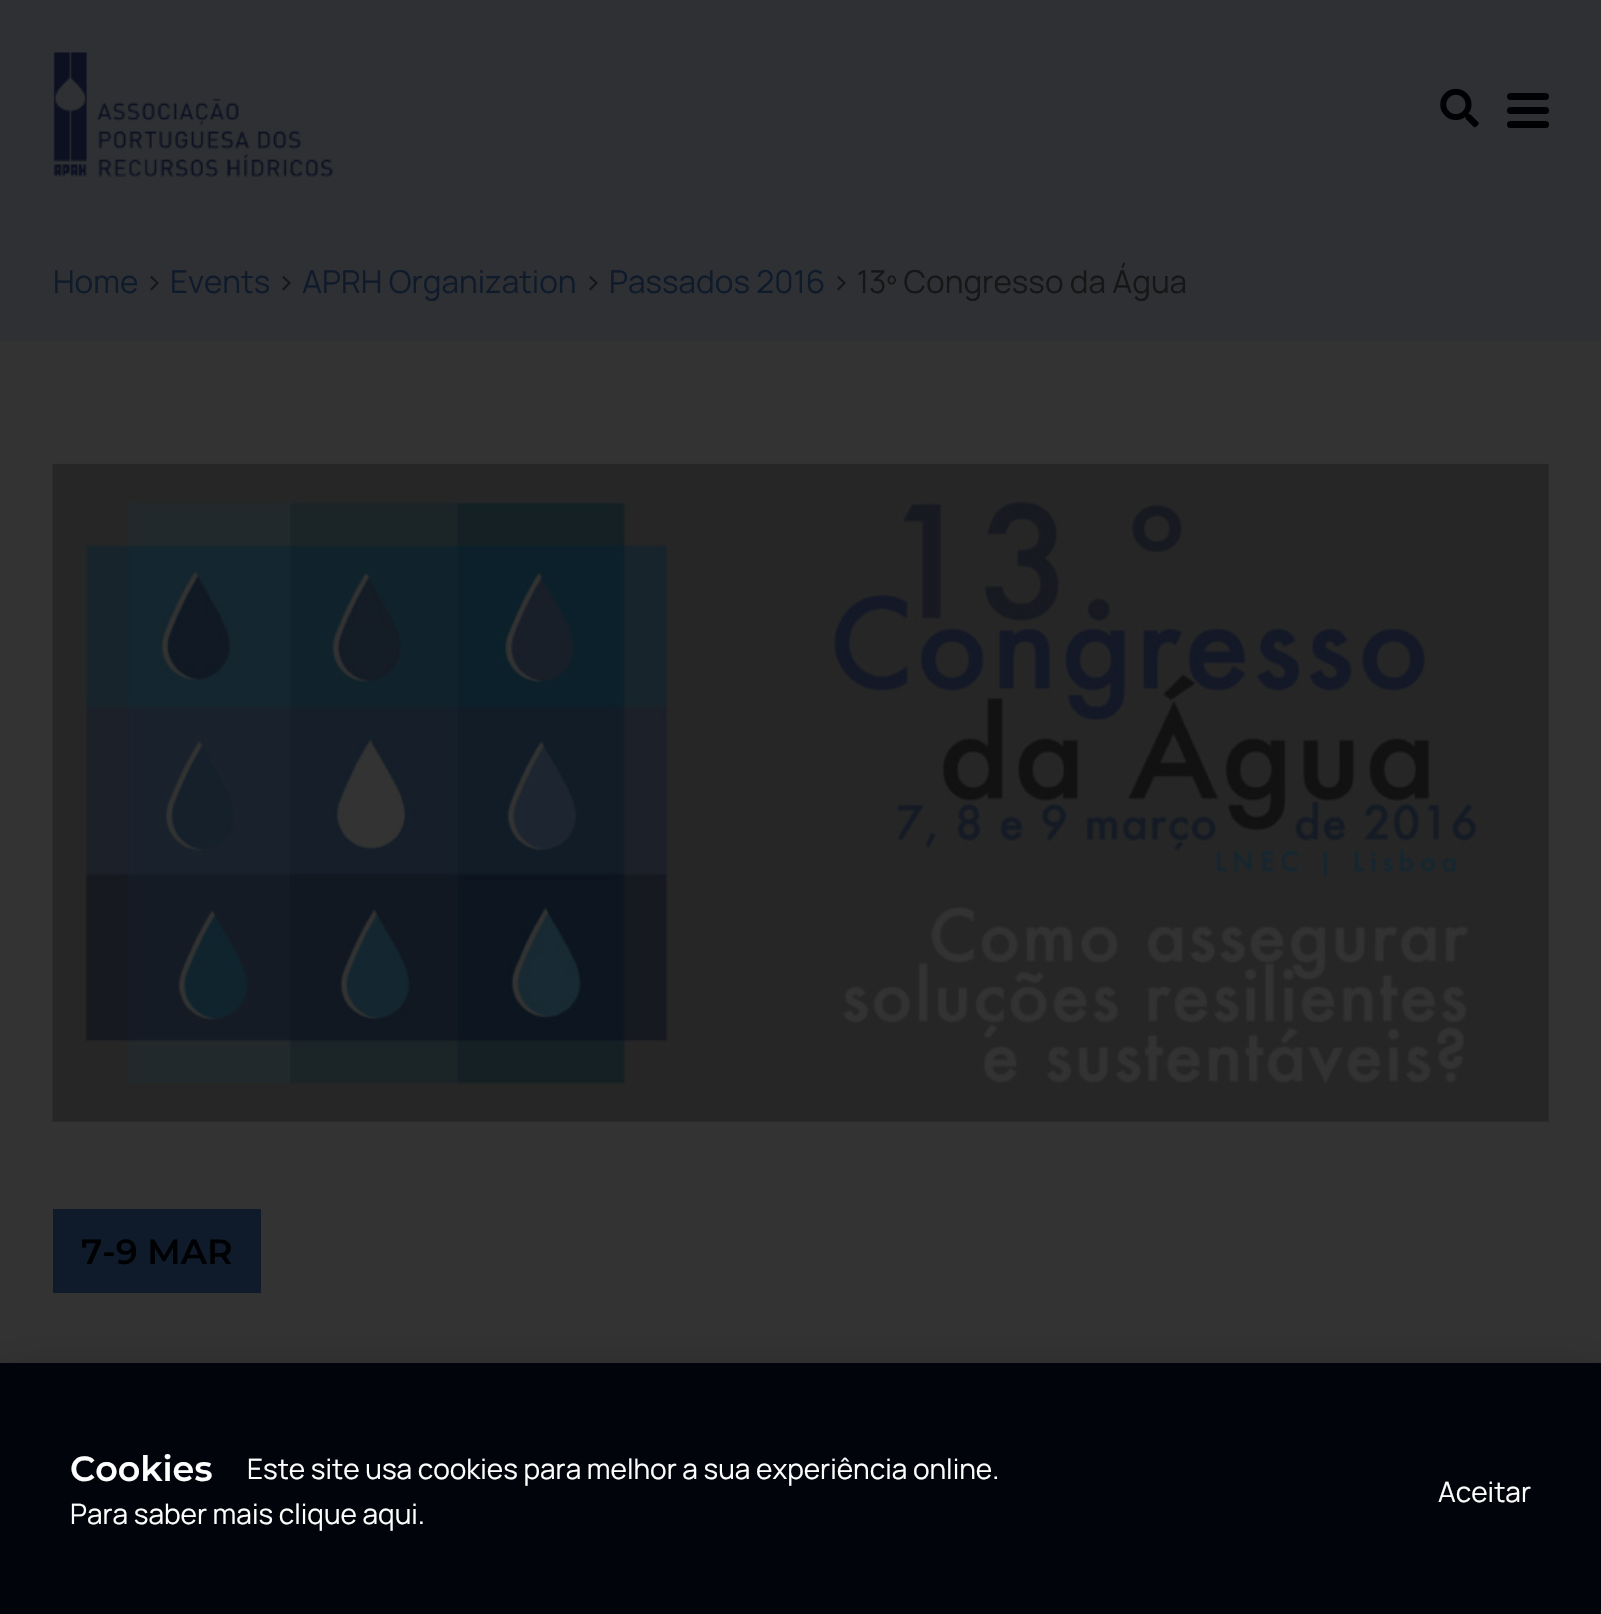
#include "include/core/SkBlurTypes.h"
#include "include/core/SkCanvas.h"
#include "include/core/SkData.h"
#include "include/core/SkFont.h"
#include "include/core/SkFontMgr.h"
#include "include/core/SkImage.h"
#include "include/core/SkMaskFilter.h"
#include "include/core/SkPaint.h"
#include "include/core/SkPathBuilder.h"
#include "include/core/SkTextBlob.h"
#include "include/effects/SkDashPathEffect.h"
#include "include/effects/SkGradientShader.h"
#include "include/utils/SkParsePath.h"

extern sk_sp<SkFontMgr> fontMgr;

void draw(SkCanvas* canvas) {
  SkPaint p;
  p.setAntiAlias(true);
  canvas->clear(SkColorSetRGB(51, 51, 51));
  p.setColor(SkColorSetRGB(46, 48, 51));
  canvas->drawRect(SkRect::MakeLTRB(0, 0, 1601, 341), p);
  canvas->drawImageRect(SkImages::DeferredFromEncodedData(SkData::MakeFromFileName("images/1.png")), SkRect::MakeLTRB(53, 52, 333, 177), SkSamplingOptions());
  canvas->drawImageRect(SkImages::DeferredFromEncodedData(SkData::MakeFromFileName("images/2.png")), SkRect::MakeLTRB(1440, 88, 1479, 128), SkSamplingOptions());
  p.setColor(SkColorSetRGB(0, 1, 2));
  canvas->drawRoundRect(SkRect::MakeLTRB(1507, 93, 1549, 100), 3.5f, 3.5f, p);
  canvas->drawRoundRect(SkRect::MakeLTRB(1507, 107, 1549, 114), 3.5f, 3.5f, p);
  canvas->drawRoundRect(SkRect::MakeLTRB(1507, 121, 1549, 128), 3.5f, 3.5f, p);
  canvas->drawImageRect(SkImages::DeferredFromEncodedData(SkData::MakeFromFileName("images/3.png")), SkRect::MakeLTRB(52, 463, 1549, 1122), SkSamplingOptions());
  p.setColor(SkColorSetRGB(15, 26, 43));
  canvas->drawRect(SkRect::MakeLTRB(53, 1209, 261, 1293), p);
  p.setColor(SkColorSetARGB(51, 0, 0, 0));
  p.setMaskFilter(SkMaskFilter::MakeBlur(kNormal_SkBlurStyle, 20));
  canvas->drawRect(SkRect::MakeLTRB(-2, 1372, 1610, 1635), p);
  p.setMaskFilter(nullptr);
  p.setColor(SkColorSetRGB(1, 5, 11));
  canvas->drawRect(SkRect::MakeLTRB(0, 1363, 1601, 1614), p);
  SkFont font1(fontMgr->matchFamilyStyle("Manrope", SkFontStyle::Normal()), 31.5f);
  font1.setSubpixel(true);
  p.setColor(SkColorSetRGB(15, 26, 43));
  canvas->drawString("Home", 53, 293, font1, p);
  p.setColor(SkColorSetRGB(22, 22, 22));
  canvas->drawString(">", 144, 293, font1, p);
  p.setColor(SkColorSetRGB(15, 26, 43));
  canvas->drawString("Events", 170, 293, font1, p);
  p.setColor(SkColorSetRGB(22, 22, 22));
  canvas->drawString(">", 276, 293, font1, p);
  p.setColor(SkColorSetRGB(15, 26, 43));
  canvas->drawString("APRH Organization", 302, 293, font1, p);
  p.setColor(SkColorSetRGB(22, 22, 22));
  canvas->drawString(">", 583, 293, font1, p);
  p.setColor(SkColorSetRGB(15, 26, 43));
  canvas->drawString("Passados 2016", 609, 293, font1, p);
  p.setColor(SkColorSetRGB(22, 22, 22));
  canvas->drawString("> 13º Congresso da Água", 831, 293, font1, p);
  SkFont font2(fontMgr->matchFamilyStyle("Montserrat", SkFontStyle(600, SkFontStyle::kNormal_Width, SkFontStyle::kUpright_Slant)), 35);
  font2.setSubpixel(true);
  p.setColor(SkColorSetRGB(0, 1, 2));
  canvas->drawString("7-9 MAR", 81, 1264, font2, p);
  p.setColor(SK_ColorWHITE);
  canvas->drawString("Cookies", 70, 1481, font2, p);
  SkFont font3(fontMgr->matchFamilyStyle("Manrope", SkFontStyle::Normal()), 28);
  font3.setSubpixel(true);
  canvas->drawString("Este site usa cookies para melhor a sua experiência online.", 247, 1479, font3, p);
  canvas->drawString("Para saber mais clique aqui.", 70, 1524, font3, p);
  canvas->drawString("Aceitar", 1438, 1502, font3, p);
}
